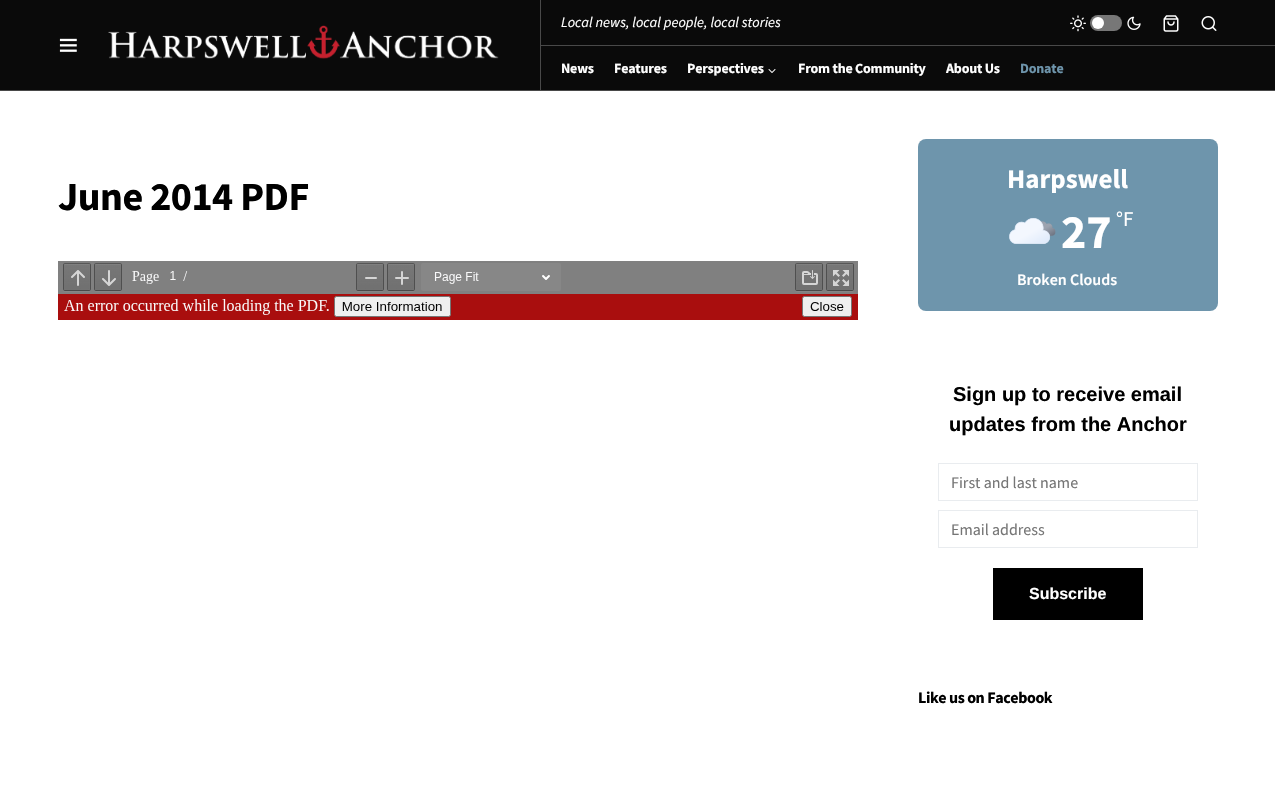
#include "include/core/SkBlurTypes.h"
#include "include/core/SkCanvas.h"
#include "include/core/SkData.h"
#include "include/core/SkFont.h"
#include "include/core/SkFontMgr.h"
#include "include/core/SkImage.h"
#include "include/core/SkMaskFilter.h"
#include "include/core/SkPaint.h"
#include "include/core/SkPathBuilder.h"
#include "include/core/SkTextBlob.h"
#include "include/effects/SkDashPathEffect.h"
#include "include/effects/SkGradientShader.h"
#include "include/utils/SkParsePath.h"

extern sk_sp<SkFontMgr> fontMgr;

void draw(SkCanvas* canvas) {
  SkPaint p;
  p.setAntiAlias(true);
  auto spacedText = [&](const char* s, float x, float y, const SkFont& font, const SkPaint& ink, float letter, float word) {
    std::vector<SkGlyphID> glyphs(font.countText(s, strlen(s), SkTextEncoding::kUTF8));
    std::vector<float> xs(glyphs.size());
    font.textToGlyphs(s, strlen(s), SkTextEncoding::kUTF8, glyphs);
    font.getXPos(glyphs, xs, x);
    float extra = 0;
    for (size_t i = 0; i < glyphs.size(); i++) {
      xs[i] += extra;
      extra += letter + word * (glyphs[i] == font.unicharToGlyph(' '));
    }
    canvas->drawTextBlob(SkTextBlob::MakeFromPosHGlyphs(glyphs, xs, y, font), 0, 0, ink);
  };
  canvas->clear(SK_ColorWHITE);
  p.setColor(SkColorSetRGB(10, 10, 10));
  canvas->drawRect(SkRect::MakeLTRB(0, 0, 1275, 90), p);
  p.setColor(SkColorSetRGB(73, 73, 73));
  canvas->drawRect(SkRect::MakeLTRB(0, 90, 1275, 91), p);
  canvas->drawImageRect(SkImages::DeferredFromEncodedData(SkData::MakeFromFileName("images/1.png")), SkRect::MakeLTRB(59, 38, 77, 52), SkSamplingOptions());
  canvas->drawRect(SkRect::MakeLTRB(540, 0, 541, 90), p);
  canvas->drawImageRect(SkImages::DeferredFromEncodedData(SkData::MakeFromFileName("images/2.png")), SkRect::MakeLTRB(108, 25, 499, 59), SkSamplingOptions());
  canvas->drawRect(SkRect::MakeLTRB(541, 45, 1275, 46), p);
  canvas->drawImageRect(SkImages::DeferredFromEncodedData(SkData::MakeFromFileName("images/3.png")), SkRect::MakeLTRB(1070, 15, 1086, 32), SkSamplingOptions());
  p.setColor(SkColorSetRGB(119, 119, 119));
  canvas->drawRoundRect(SkRect::MakeLTRB(1090, 15, 1122, 31), 8, 8, p);
  p.setColor(SK_ColorWHITE);
  canvas->drawCircle(1098, 23, 6, p);
  canvas->drawImageRect(SkImages::DeferredFromEncodedData(SkData::MakeFromFileName("images/4.png")), SkRect::MakeLTRB(1127, 16, 1141, 30), SkSamplingOptions());
  canvas->drawImageRect(SkImages::DeferredFromEncodedData(SkData::MakeFromFileName("images/5.png")), SkRect::MakeLTRB(1163, 15, 1179, 32), SkSamplingOptions());
  canvas->drawImageRect(SkImages::DeferredFromEncodedData(SkData::MakeFromFileName("images/6.png")), SkRect::MakeLTRB(1201, 16, 1217, 31), SkSamplingOptions());
  canvas->drawImageRect(SkImages::DeferredFromEncodedData(SkData::MakeFromFileName("images/7.png")), SkRect::MakeLTRB(768, 69, 776, 73), SkSamplingOptions());
  canvas->drawImageRect(SkImages::DeferredFromEncodedData(SkData::MakeFromFileName("images/8.png")), SkRect::MakeLTRB(58, 261, 858, 320), SkSamplingOptions());
  p.setColor(SkColorSetRGB(110, 149, 172));
  canvas->drawRoundRect(SkRect::MakeLTRB(918, 139, 1218, 311), 8, 8, p);
  canvas->drawImageRect(SkImages::DeferredFromEncodedData(SkData::MakeFromFileName("images/9.png")), SkRect::MakeLTRB(1009, 218, 1056, 244), SkSamplingOptions());
  p.setStyle(SkPaint::kStroke_Style);
  p.setStrokeWidth(1);
  p.setColor(SkColorSetRGB(233, 236, 239));
  canvas->drawRect(SkRect::MakeLTRB(938.5f, 463.5f, 1197.5f, 500.5f), p);
  canvas->drawRect(SkRect::MakeLTRB(938.5f, 510.5f, 1197.5f, 547.5f), p);
  p.setStyle(SkPaint::kFill_Style);
  p.setColor(SK_ColorBLACK);
  canvas->drawRect(SkRect::MakeLTRB(993, 568, 1143, 620), p);
  SkFont font1(fontMgr->matchFamilyStyle("Source Sans Pro", SkFontStyle::Italic()), 14.4f);
  font1.setSubpixel(true);
  p.setColor(SK_ColorWHITE);
  canvas->drawString("Local news, local people, local stories", 561, 27, font1, p);
  SkFont font2(fontMgr->matchFamilyStyle("Source Sans Pro", SkFontStyle::Bold()), 14);
  font2.setSubpixel(true);
  spacedText("News", 561, 73, font2, p, -0.2f, 0);
  spacedText("Features", 614, 73, font2, p, -0.2f, 0);
  spacedText("Perspectives", 687, 73, font2, p, -0.2f, 0);
  spacedText("From the Community", 798, 73, font2, p, -0.2f, 0);
  spacedText("About Us", 946, 73, font2, p, -0.2f, 0);
  p.setColor(SkColorSetRGB(110, 149, 172));
  spacedText("Donate", 1020, 73, font2, p, -0.2f, 0);
  SkFont font3(fontMgr->matchFamilyStyle("Source Sans Pro", SkFontStyle::Bold()), 40);
  font3.setSubpixel(true);
  p.setColor(SK_ColorBLACK);
  spacedText("June 2014 PDF", 58, 210, font3, p, -0.5f, 0);
  SkFont font4(fontMgr->matchFamilyStyle("Source Sans Pro", SkFontStyle::Bold()), 27);
  font4.setSubpixel(true);
  p.setColor(SK_ColorWHITE);
  canvas->drawString("Harpswell", 1007, 188, font4, p);
  SkFont font5(fontMgr->matchFamilyStyle("Source Sans Pro", SkFontStyle::Bold()), 48);
  font5.setSubpixel(true);
  canvas->drawString("27", 1061, 248, font5, p);
  SkFont font6(fontMgr->matchFamilyStyle("Source Sans Pro", SkFontStyle::Normal()), 21);
  font6.setSubpixel(true);
  canvas->drawString("°F", 1116, 226, font6, p);
  SkFont font7(fontMgr->matchFamilyStyle("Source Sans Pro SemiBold", SkFontStyle(600, SkFontStyle::kNormal_Width, SkFontStyle::kUpright_Slant)), 16);
  font7.setSubpixel(true);
  canvas->drawString("Broken Clouds", 1017, 285, font7, p);
  SkFont font8(fontMgr->matchFamilyStyle("Liberation Sans", SkFontStyle::Bold()), 20);
  font8.setSubpixel(true);
  p.setColor(SK_ColorBLACK);
  canvas->drawString("Sign up to receive email", 953, 401, font8, p);
  canvas->drawString("updates from the Anchor", 949, 431, font8, p);
  SkFont font9(fontMgr->matchFamilyStyle("Source Sans Pro", SkFontStyle::Normal()), 16);
  font9.setSubpixel(true);
  p.setColor(SkColorSetRGB(117, 117, 117));
  canvas->drawString("First and last name", 951, 488, font9, p);
  canvas->drawString("Email address", 951, 535, font9, p);
  SkFont font10(fontMgr->matchFamilyStyle("Liberation Sans", SkFontStyle::Bold()), 16);
  font10.setSubpixel(true);
  p.setColor(SK_ColorWHITE);
  canvas->drawString("Subscribe", 1029, 599, font10, p);
  SkFont font11(fontMgr->matchFamilyStyle("Source Sans Pro", SkFontStyle::Bold()), 16);
  font11.setSubpixel(true);
  p.setColor(SK_ColorBLACK);
  spacedText("Like us on Facebook", 918, 703, font11, p, -0.4f, 0);
}
